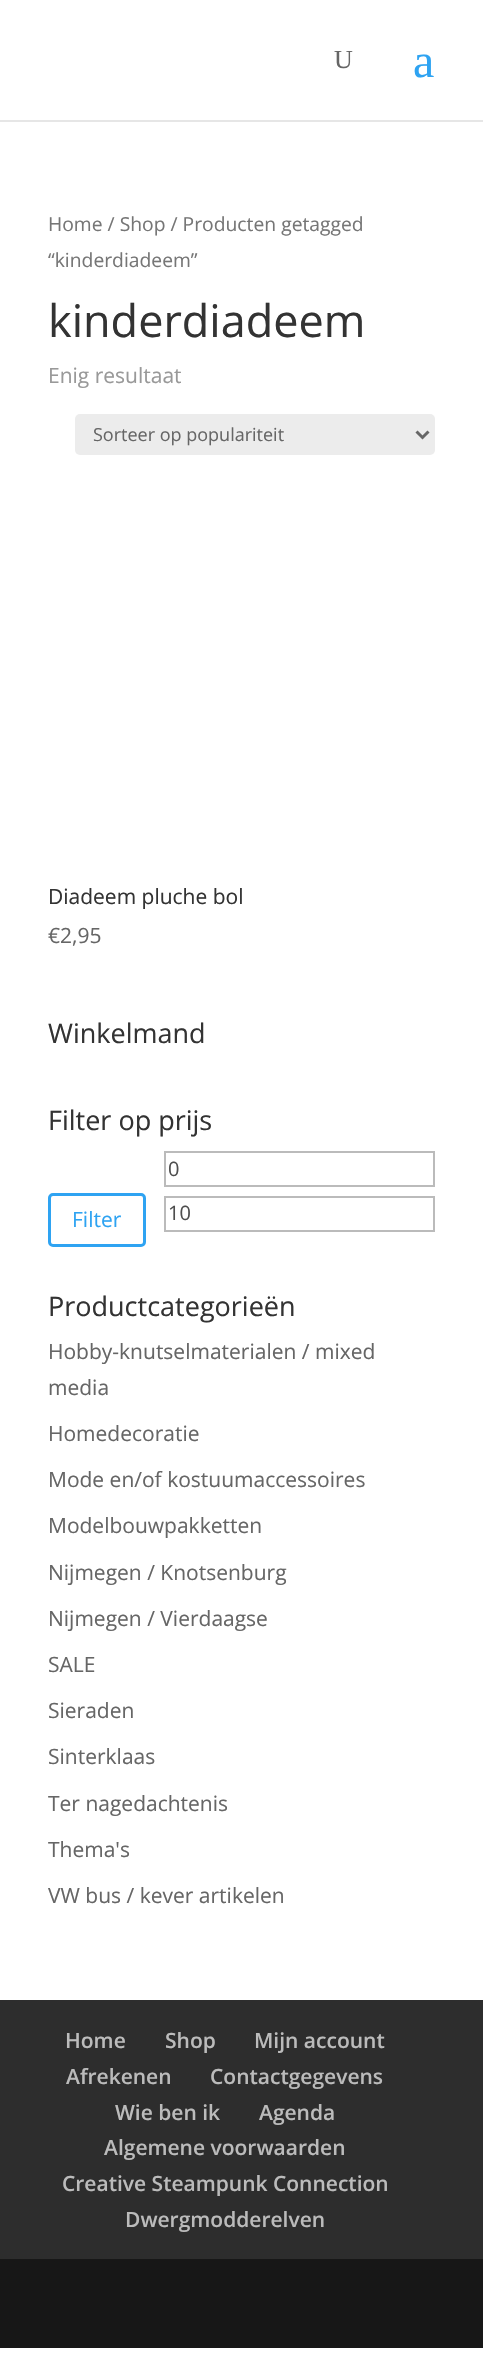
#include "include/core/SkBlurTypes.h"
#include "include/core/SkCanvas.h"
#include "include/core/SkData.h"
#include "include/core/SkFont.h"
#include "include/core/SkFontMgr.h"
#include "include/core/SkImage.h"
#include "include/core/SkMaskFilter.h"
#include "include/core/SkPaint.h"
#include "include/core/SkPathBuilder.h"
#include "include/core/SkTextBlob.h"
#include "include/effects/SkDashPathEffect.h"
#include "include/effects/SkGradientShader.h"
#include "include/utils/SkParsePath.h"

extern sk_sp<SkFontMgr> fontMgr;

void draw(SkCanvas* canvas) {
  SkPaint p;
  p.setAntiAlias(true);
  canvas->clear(SK_ColorWHITE);
  p.setColor(SkColorSetRGB(230, 230, 230));
  canvas->drawRect(SkRect::MakeLTRB(0, 120, 483, 122), p);
  p.setColor(SkColorSetRGB(236, 236, 236));
  canvas->drawRoundRect(SkRect::MakeLTRB(75, 414, 435, 455), 5, 5, p);
  p.setStyle(SkPaint::kStroke_Style);
  p.setStrokeWidth(3);
  p.setColor(SkColorSetRGB(102, 102, 102));
  canvas->drawPath(SkPathBuilder().moveTo(416.5f, 431.5f).lineTo(422.5f, 437.5f).lineTo(428.5f, 431.5f).detach(), p);
  p.setStrokeWidth(2);
  p.setColor(SkColorSetRGB(187, 187, 187));
  canvas->drawRect(SkRect::MakeLTRB(165, 1152, 434, 1186), p);
  p.setStrokeWidth(3);
  p.setColor(SkColorSetRGB(46, 163, 242));
  canvas->drawRoundRect(SkRect::MakeLTRB(49.5f, 1194.5f, 144.5f, 1245.5f), 3.5f, 3.5f, p);
  p.setStrokeWidth(2);
  p.setColor(SkColorSetRGB(187, 187, 187));
  canvas->drawRect(SkRect::MakeLTRB(165, 1197, 434, 1231), p);
  p.setStyle(SkPaint::kFill_Style);
  p.setColor(SkColorSetRGB(45, 45, 45));
  canvas->drawRect(SkRect::MakeLTRB(0, 2000, 483, 2259), p);
  p.setColor(SkColorSetRGB(23, 23, 23));
  canvas->drawRect(SkRect::MakeLTRB(0, 2259, 483, 2348), p);
  SkFont font1(fontMgr->matchFamilyStyle("Liberation Serif", SkFontStyle::Normal()), 26);
  font1.setSubpixel(true);
  p.setColor(SkColorSetRGB(102, 102, 102));
  canvas->drawString("U", 334, 68, font1, p);
  SkFont font2(fontMgr->matchFamilyStyle("Liberation Serif", SkFontStyle::Normal()), 48);
  font2.setSubpixel(true);
  p.setColor(SkColorSetRGB(46, 163, 242));
  canvas->drawString("a", 413, 77, font2, p);
  SkFont font3(fontMgr->matchFamilyStyle("Open Sans", SkFontStyle::Normal()), 19.3f);
  font3.setSubpixel(true);
  p.setColor(SkColorSetRGB(118, 118, 118));
  canvas->drawString("Home / Shop / Producten getagged", 48, 231, font3, p);
  canvas->drawString("“kinderdiadeem”", 48, 267, font3, p);
  SkFont font4(fontMgr->matchFamilyStyle("Open Sans", SkFontStyle::Normal()), 45);
  font4.setSubpixel(true);
  p.setColor(SkColorSetRGB(51, 51, 51));
  canvas->drawString("kinderdiadeem", 48, 337, font4, p);
  SkFont font5(fontMgr->matchFamilyStyle("Open Sans", SkFontStyle::Normal()), 21);
  font5.setSubpixel(true);
  p.setColor(SkColorSetRGB(153, 153, 153));
  canvas->drawString("Enig resultaat", 48, 383, font5, p);
  SkFont font6(fontMgr->matchFamilyStyle("Open Sans", SkFontStyle::Normal()), 18);
  font6.setSubpixel(true);
  p.setColor(SkColorSetRGB(102, 102, 102));
  canvas->drawString("Sorteer op populariteit", 93, 441, font6, p);
  p.setColor(SkColorSetRGB(51, 51, 51));
  canvas->drawString("Diadeem pluche bol", 48, 904, font5, p);
  p.setColor(SkColorSetRGB(102, 102, 102));
  canvas->drawString("€2,95", 48, 943, font5, p);
  SkFont font7(fontMgr->matchFamilyStyle("Open Sans", SkFontStyle::Normal()), 27);
  font7.setSubpixel(true);
  p.setColor(SkColorSetRGB(51, 51, 51));
  canvas->drawString("Winkelmand", 48, 1043, font7, p);
  canvas->drawString("Filter op prijs", 48, 1130, font7, p);
  SkFont font8(fontMgr->matchFamilyStyle("Open Sans", SkFontStyle::Normal()), 20);
  font8.setSubpixel(true);
  p.setColor(SkColorSetRGB(78, 78, 78));
  canvas->drawString("0", 168, 1176, font8, p);
  p.setColor(SkColorSetRGB(46, 163, 242));
  canvas->drawString("Filter", 72, 1227, font5, p);
  p.setColor(SkColorSetRGB(78, 78, 78));
  canvas->drawString("10", 168, 1220, font8, p);
  p.setColor(SkColorSetRGB(51, 51, 51));
  canvas->drawString("Productcategorieën", 48, 1316, font7, p);
  p.setColor(SkColorSetRGB(102, 102, 102));
  canvas->drawString("Hobby-knutselmaterialen / mixed", 48, 1359, font5, p);
  canvas->drawString("media", 48, 1395, font5, p);
  canvas->drawString("Homedecoratie", 48, 1441, font5, p);
  canvas->drawString("Mode en/of kostuumaccessoires", 48, 1487, font5, p);
  canvas->drawString("Modelbouwpakketten", 48, 1533, font5, p);
  canvas->drawString("Nijmegen / Knotsenburg", 48, 1580, font5, p);
  canvas->drawString("Nijmegen / Vierdaagse", 48, 1626, font5, p);
  canvas->drawString("SALE", 48, 1672, font5, p);
  canvas->drawString("Sieraden", 48, 1718, font5, p);
  canvas->drawString("Sinterklaas", 48, 1764, font5, p);
  canvas->drawString("Ter nagedachtenis", 48, 1811, font5, p);
  canvas->drawString("Thema's", 48, 1857, font5, p);
  canvas->drawString("VW bus / kever artikelen", 48, 1903, font5, p);
  SkFont font9(fontMgr->matchFamilyStyle("Open Sans", SkFontStyle(600, SkFontStyle::kNormal_Width, SkFontStyle::kUpright_Slant)), 21);
  font9.setSubpixel(true);
  p.setColor(SkColorSetRGB(187, 187, 187));
  canvas->drawString("Home", 65, 2048, font9, p);
  canvas->drawString("Shop", 165, 2048, font9, p);
  canvas->drawString("Mijn account", 254, 2048, font9, p);
  canvas->drawString("Afrekenen", 66, 2084, font9, p);
  canvas->drawString("Contactgegevens", 210, 2084, font9, p);
  canvas->drawString("Wie ben ik", 115, 2120, font9, p);
  canvas->drawString("Agenda", 259, 2120, font9, p);
  canvas->drawString("Algemene voorwaarden", 104, 2155, font9, p);
  canvas->drawString("Creative Steampunk Connection", 62, 2191, font9, p);
  canvas->drawString("Dwergmodderelven", 125, 2227, font9, p);
}
